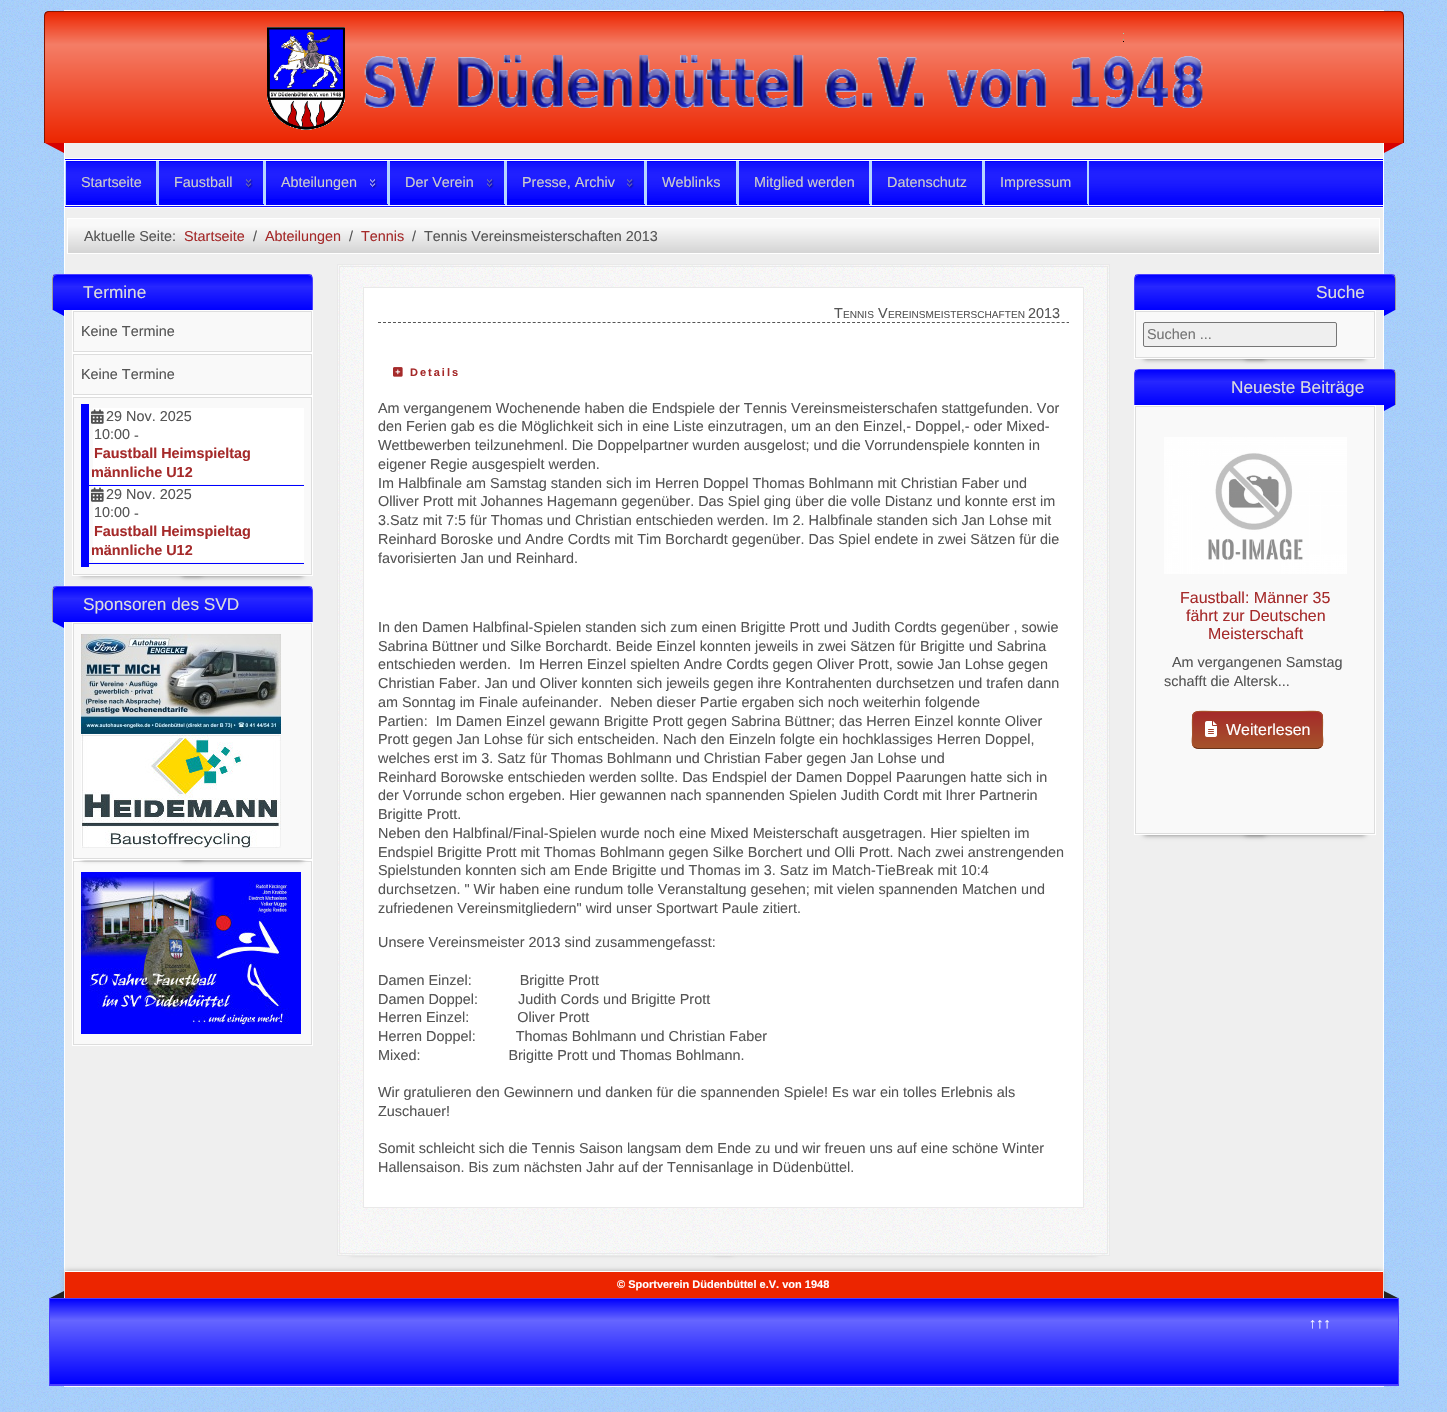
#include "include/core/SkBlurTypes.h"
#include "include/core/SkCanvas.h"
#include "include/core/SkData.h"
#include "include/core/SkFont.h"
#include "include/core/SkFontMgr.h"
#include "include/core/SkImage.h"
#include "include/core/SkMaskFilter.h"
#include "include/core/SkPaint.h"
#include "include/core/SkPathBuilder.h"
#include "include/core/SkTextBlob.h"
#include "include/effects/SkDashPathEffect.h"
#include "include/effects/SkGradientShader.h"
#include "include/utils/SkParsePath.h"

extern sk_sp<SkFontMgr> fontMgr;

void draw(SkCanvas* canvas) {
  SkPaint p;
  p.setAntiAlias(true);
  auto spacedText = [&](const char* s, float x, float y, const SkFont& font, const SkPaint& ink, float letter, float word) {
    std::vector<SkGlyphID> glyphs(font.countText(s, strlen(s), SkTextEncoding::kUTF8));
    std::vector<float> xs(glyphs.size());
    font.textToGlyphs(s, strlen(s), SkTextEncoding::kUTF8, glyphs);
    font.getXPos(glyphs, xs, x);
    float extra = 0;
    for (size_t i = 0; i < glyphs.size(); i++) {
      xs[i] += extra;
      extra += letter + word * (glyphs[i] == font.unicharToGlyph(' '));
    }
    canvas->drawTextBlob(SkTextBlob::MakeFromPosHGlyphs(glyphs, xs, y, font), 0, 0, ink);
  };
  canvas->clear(SkColorSetRGB(162, 205, 253));
  canvas->drawImageRect(SkImages::DeferredFromEncodedData(SkData::MakeFromFileName("images/1.png")), SkRect::MakeLTRB(0, 0, 1447, 1412), SkSamplingOptions());
  p.setColor(SkColorSetRGB(239, 239, 239));
  canvas->drawRect(SkRect::MakeLTRB(65, 143, 1383, 1271), p);
  p.setStyle(SkPaint::kStroke_Style);
  p.setStrokeWidth(1);
  p.setColor(SK_ColorWHITE);
  canvas->drawRect(SkRect::MakeLTRB(64.5f, 10.5f, 1383.5f, 1386.5f), p);
  p.setStyle(SkPaint::kFill_Style);
  {
    const SkColor colors[] = {SkColorSetRGB(236, 37, 0), SkColorSetRGB(244, 125, 102), SkColorSetRGB(236, 37, 0)};
    const float stops[] = {0, 0.25f, 1};
    const SkPoint ends[] = {{724, 12}, {724, 143}};
    p.setShader(SkGradientShader::MakeLinear(ends, colors, stops, 3, SkTileMode::kClamp));
    p.setAlpha(255);
  }
  canvas->drawRect(SkRect::MakeLTRB(45, 12, 1403, 143), p);
  p.setShader(nullptr);
  p.setColor(SkColorSetRGB(135, 21, 0));
  canvas->drawPath(SkPathBuilder(SkPathFillType::kEvenOdd).moveTo(49, 11).lineTo(1399, 11).cubicTo(1402, 11, 1404, 13, 1404, 16).lineTo(1404, 143).lineTo(44, 143).lineTo(44, 16).cubicTo(44, 13, 46, 11, 49, 11).close().moveTo(49, 12).lineTo(1399, 12).cubicTo(1401, 12, 1403, 14, 1403, 16).lineTo(1403, 143).lineTo(45, 143).lineTo(45, 16).cubicTo(45, 14, 47, 12, 49, 12).close().detach(), p);
  canvas->drawImageRect(SkImages::DeferredFromEncodedData(SkData::MakeFromFileName("images/2.png")), SkRect::MakeLTRB(267, 27, 1203, 130), SkSamplingOptions());
  p.setColor(SkColorSetRGB(214, 0, 0));
  canvas->drawPath(SkPathBuilder().moveTo(45, 143).lineTo(64, 143).lineTo(64, 153).close().detach(), p);
  canvas->drawPath(SkPathBuilder().moveTo(1384, 143).lineTo(1403, 143).lineTo(1384, 153).close().detach(), p);
  p.setColor(SkColorSetRGB(0, 0, 255));
  canvas->drawRect(SkRect::MakeLTRB(65, 159, 1383, 207), p);
  canvas->drawImageRect(SkImages::DeferredFromEncodedData(SkData::MakeFromFileName("images/3.png")), SkRect::MakeLTRB(65, 161, 1383, 207), SkSamplingOptions());
  p.setColor(SK_ColorWHITE);
  canvas->drawRect(SkRect::MakeLTRB(65, 158, 1383, 159), p);
  canvas->drawRect(SkRect::MakeLTRB(65, 160, 1383, 161), p);
  canvas->drawRect(SkRect::MakeLTRB(65, 205, 1383, 206), p);
  canvas->drawRect(SkRect::MakeLTRB(65, 207, 1383, 208), p);
  p.setColor(SkColorSetRGB(182, 214, 255));
  canvas->drawRect(SkRect::MakeLTRB(156, 161, 158, 205), p);
  p.setColor(SkColorSetRGB(0, 0, 255));
  canvas->drawRect(SkRect::MakeLTRB(66, 161, 156, 203), p);
  canvas->drawImageRect(SkImages::DeferredFromEncodedData(SkData::MakeFromFileName("images/4.png")), SkRect::MakeLTRB(66, 162, 156, 201), SkSamplingOptions());
  canvas->drawRect(SkRect::MakeLTRB(156, 204, 157, 205), p);
  p.setColor(SkColorSetRGB(182, 214, 255));
  canvas->drawRect(SkRect::MakeLTRB(65, 161, 66, 205), p);
  canvas->drawRect(SkRect::MakeLTRB(264, 161, 265, 205), p);
  p.setColor(SkColorSetRGB(0, 0, 255));
  canvas->drawRect(SkRect::MakeLTRB(159, 162, 263, 203), p);
  canvas->drawImageRect(SkImages::DeferredFromEncodedData(SkData::MakeFromFileName("images/5.png")), SkRect::MakeLTRB(159, 162, 263, 199), SkSamplingOptions());
  canvas->drawRect(SkRect::MakeLTRB(158, 161, 264, 162), p);
  p.setColor(SkColorSetRGB(182, 214, 255));
  canvas->drawRect(SkRect::MakeLTRB(263, 161, 264, 205), p);
  p.setColor(SkColorSetRGB(0, 0, 255));
  canvas->drawRect(SkRect::MakeLTRB(263, 204, 264, 205), p);
  p.setColor(SkColorSetRGB(182, 214, 255));
  canvas->drawRect(SkRect::MakeLTRB(158, 161, 159, 205), p);
  canvas->drawRect(SkRect::MakeLTRB(388, 161, 389, 205), p);
  p.setColor(SkColorSetRGB(0, 0, 255));
  canvas->drawRect(SkRect::MakeLTRB(266, 162, 387, 203), p);
  canvas->drawImageRect(SkImages::DeferredFromEncodedData(SkData::MakeFromFileName("images/6.png")), SkRect::MakeLTRB(266, 162, 387, 199), SkSamplingOptions());
  canvas->drawRect(SkRect::MakeLTRB(265, 161, 388, 162), p);
  p.setColor(SkColorSetRGB(182, 214, 255));
  canvas->drawRect(SkRect::MakeLTRB(387, 161, 388, 205), p);
  p.setColor(SkColorSetRGB(0, 0, 255));
  canvas->drawRect(SkRect::MakeLTRB(387, 204, 388, 205), p);
  p.setColor(SkColorSetRGB(182, 214, 255));
  canvas->drawRect(SkRect::MakeLTRB(265, 161, 266, 205), p);
  canvas->drawRect(SkRect::MakeLTRB(505, 161, 506, 205), p);
  p.setColor(SkColorSetRGB(0, 0, 255));
  canvas->drawRect(SkRect::MakeLTRB(390, 162, 504, 203), p);
  canvas->drawImageRect(SkImages::DeferredFromEncodedData(SkData::MakeFromFileName("images/7.png")), SkRect::MakeLTRB(390, 162, 504, 199), SkSamplingOptions());
  canvas->drawRect(SkRect::MakeLTRB(389, 161, 505, 162), p);
  p.setColor(SkColorSetRGB(182, 214, 255));
  canvas->drawRect(SkRect::MakeLTRB(504, 161, 505, 205), p);
  p.setColor(SkColorSetRGB(0, 0, 255));
  canvas->drawRect(SkRect::MakeLTRB(504, 204, 505, 205), p);
  p.setColor(SkColorSetRGB(182, 214, 255));
  canvas->drawRect(SkRect::MakeLTRB(389, 161, 390, 205), p);
  canvas->drawRect(SkRect::MakeLTRB(645, 161, 647, 205), p);
  p.setColor(SkColorSetRGB(0, 0, 255));
  canvas->drawRect(SkRect::MakeLTRB(507, 162, 644, 203), p);
  canvas->drawImageRect(SkImages::DeferredFromEncodedData(SkData::MakeFromFileName("images/8.png")), SkRect::MakeLTRB(507, 162, 644, 199), SkSamplingOptions());
  canvas->drawRect(SkRect::MakeLTRB(506, 161, 645, 162), p);
  p.setColor(SkColorSetRGB(182, 214, 255));
  canvas->drawRect(SkRect::MakeLTRB(644, 161, 645, 205), p);
  p.setColor(SkColorSetRGB(0, 0, 255));
  canvas->drawRect(SkRect::MakeLTRB(644, 204, 645, 205), p);
  p.setColor(SkColorSetRGB(182, 214, 255));
  canvas->drawRect(SkRect::MakeLTRB(506, 161, 507, 205), p);
  canvas->drawRect(SkRect::MakeLTRB(736, 161, 739, 205), p);
  p.setColor(SkColorSetRGB(0, 0, 255));
  canvas->drawRect(SkRect::MakeLTRB(647, 161, 736, 203), p);
  canvas->drawImageRect(SkImages::DeferredFromEncodedData(SkData::MakeFromFileName("images/9.png")), SkRect::MakeLTRB(647, 162, 736, 201), SkSamplingOptions());
  canvas->drawRect(SkRect::MakeLTRB(736, 204, 737, 205), p);
  p.setColor(SkColorSetRGB(182, 214, 255));
  canvas->drawRect(SkRect::MakeLTRB(869, 161, 872, 205), p);
  p.setColor(SkColorSetRGB(0, 0, 255));
  canvas->drawRect(SkRect::MakeLTRB(739, 161, 869, 203), p);
  canvas->drawImageRect(SkImages::DeferredFromEncodedData(SkData::MakeFromFileName("images/10.png")), SkRect::MakeLTRB(739, 162, 869, 201), SkSamplingOptions());
  canvas->drawRect(SkRect::MakeLTRB(869, 204, 870, 205), p);
  p.setColor(SkColorSetRGB(182, 214, 255));
  canvas->drawRect(SkRect::MakeLTRB(982, 161, 985, 205), p);
  p.setColor(SkColorSetRGB(0, 0, 255));
  canvas->drawRect(SkRect::MakeLTRB(872, 161, 982, 203), p);
  canvas->drawImageRect(SkImages::DeferredFromEncodedData(SkData::MakeFromFileName("images/11.png")), SkRect::MakeLTRB(872, 162, 982, 201), SkSamplingOptions());
  canvas->drawRect(SkRect::MakeLTRB(982, 204, 983, 205), p);
  p.setColor(SkColorSetRGB(182, 214, 255));
  canvas->drawRect(SkRect::MakeLTRB(1087, 161, 1089, 205), p);
  p.setColor(SkColorSetRGB(0, 0, 255));
  canvas->drawRect(SkRect::MakeLTRB(985, 161, 1087, 203), p);
  canvas->drawImageRect(SkImages::DeferredFromEncodedData(SkData::MakeFromFileName("images/12.png")), SkRect::MakeLTRB(985, 162, 1087, 201), SkSamplingOptions());
  canvas->drawRect(SkRect::MakeLTRB(1087, 204, 1088, 205), p);
  {
    const SkColor colors[] = {SkColorSetRGB(249, 249, 249), SkColorSetRGB(249, 249, 249), SkColorSetRGB(212, 212, 212)};
    const float stops[] = {0, 0.2f, 1};
    const SkPoint ends[] = {{724, 219}, {724, 253}};
    p.setShader(SkGradientShader::MakeLinear(ends, colors, stops, 3, SkTileMode::kClamp));
    p.setAlpha(255);
  }
  canvas->drawRect(SkRect::MakeLTRB(68, 219, 1379, 253), p);
  p.setStyle(SkPaint::kStroke_Style);
  p.setShader(nullptr);
  p.setColor(SK_ColorWHITE);
  canvas->drawRect(SkRect::MakeLTRB(67.5f, 218.5f, 1379.5f, 253.5f), p);
  p.setStyle(SkPaint::kFill_Style);
  {
    const SkColor colors[] = {SkColorSetRGB(0, 0, 255), SkColorSetRGB(39, 39, 255), SkColorSetRGB(0, 0, 255)};
    const float stops[] = {0, 0.33f, 1};
    const SkPoint ends[] = {{183, 275}, {183, 310}};
    p.setShader(SkGradientShader::MakeLinear(ends, colors, stops, 3, SkTileMode::kClamp));
    p.setAlpha(255);
  }
  canvas->drawRect(SkRect::MakeLTRB(53, 275, 312, 310), p);
  p.setShader(nullptr);
  p.setColor(SkColorSetRGB(76, 64, 255));
  canvas->drawPath(SkPathBuilder().moveTo(57, 274).cubicTo(56, 274, 54, 274, 53, 275).lineTo(54, 276).cubicTo(55, 276, 56, 275, 57, 275).lineTo(308, 275).cubicTo(309, 275, 310, 276, 311, 276).lineTo(312, 275).cubicTo(311, 274, 310, 274, 308, 274).close().detach(), p);
  canvas->drawPath(SkPathBuilder().moveTo(312, 310).lineTo(313, 310).lineTo(313, 279).cubicTo(313, 277.5f, 312.5f, 276, 311.5f, 275.5f).lineTo(311, 276).cubicTo(311.5f, 277, 312, 278, 312, 279).close().detach(), p);
  p.setColor(SkColorSetRGB(153, 153, 153));
  canvas->drawPath(SkPathBuilder().moveTo(52, 310).lineTo(53, 310).lineTo(53, 279).cubicTo(53, 278, 53.5f, 277, 54, 276).lineTo(53.5f, 275.5f).cubicTo(52.5f, 276, 52, 277.5f, 52, 279).close().detach(), p);
  p.setColor(SkColorSetRGB(0, 0, 255));
  canvas->drawPath(SkPathBuilder().moveTo(53, 310).lineTo(64, 310).lineTo(64, 316).close().detach(), p);
  p.setStyle(SkPaint::kStroke_Style);
  p.setColor(SK_ColorWHITE);
  canvas->drawRect(SkRect::MakeLTRB(72.5f, 310.5f, 312.5f, 352.5f), p);
  p.setStyle(SkPaint::kFill_Style);
  p.setColor(SkColorSetRGB(249, 249, 249));
  canvas->drawRect(SkRect::MakeLTRB(73.5f, 311.5f, 311.5f, 351.5f), p);
  p.setStyle(SkPaint::kStroke_Style);
  p.setColor(SkColorSetRGB(221, 221, 221));
  canvas->drawRect(SkRect::MakeLTRB(73.5f, 311.5f, 311.5f, 351.5f), p);
  p.setColor(SK_ColorWHITE);
  canvas->drawRect(SkRect::MakeLTRB(72.5f, 353.5f, 312.5f, 395.5f), p);
  p.setStyle(SkPaint::kFill_Style);
  p.setColor(SkColorSetRGB(249, 249, 249));
  canvas->drawRect(SkRect::MakeLTRB(73.5f, 354.5f, 311.5f, 394.5f), p);
  p.setStyle(SkPaint::kStroke_Style);
  p.setColor(SkColorSetRGB(221, 221, 221));
  canvas->drawRect(SkRect::MakeLTRB(73.5f, 354.5f, 311.5f, 394.5f), p);
  p.setStyle(SkPaint::kFill_Style);
  p.setColor(SkColorSetRGB(120, 120, 120));
  p.setMaskFilter(SkMaskFilter::MakeBlur(kNormal_SkBlurStyle, 2.5f));
  canvas->drawRect(SkRect::MakeLTRB(81, 545, 202, 575), p);
  p.setMaskFilter(nullptr);
  p.setMaskFilter(SkMaskFilter::MakeBlur(kNormal_SkBlurStyle, 2.5f));
  canvas->drawRect(SkRect::MakeLTRB(182, 545, 303, 576), p);
  p.setMaskFilter(nullptr);
  p.setStyle(SkPaint::kStroke_Style);
  p.setColor(SK_ColorWHITE);
  canvas->drawRect(SkRect::MakeLTRB(72.5f, 396.5f, 312.5f, 575.5f), p);
  p.setStyle(SkPaint::kFill_Style);
  p.setColor(SkColorSetRGB(249, 249, 249));
  canvas->drawRect(SkRect::MakeLTRB(73.5f, 397.5f, 311.5f, 574.5f), p);
  p.setStyle(SkPaint::kStroke_Style);
  p.setColor(SkColorSetRGB(221, 221, 221));
  canvas->drawRect(SkRect::MakeLTRB(73.5f, 397.5f, 311.5f, 574.5f), p);
  p.setStyle(SkPaint::kFill_Style);
  p.setColor(SK_ColorWHITE);
  canvas->drawRect(SkRect::MakeLTRB(93, 408, 304, 484), p);
  p.setColor(SkColorSetRGB(0, 0, 255));
  canvas->drawRect(SkRect::MakeLTRB(84, 485, 304, 486), p);
  canvas->drawImageRect(SkImages::DeferredFromEncodedData(SkData::MakeFromFileName("images/13.png")), SkRect::MakeLTRB(91, 409, 104, 424), SkSamplingOptions());
  p.setColor(SK_ColorWHITE);
  canvas->drawRect(SkRect::MakeLTRB(93, 486, 304, 562), p);
  p.setColor(SkColorSetRGB(0, 0, 255));
  canvas->drawRect(SkRect::MakeLTRB(84, 563, 304, 564), p);
  canvas->drawRect(SkRect::MakeLTRB(81, 404, 89, 567), p);
  canvas->drawImageRect(SkImages::DeferredFromEncodedData(SkData::MakeFromFileName("images/13.png")), SkRect::MakeLTRB(91, 487, 104, 502), SkSamplingOptions());
  {
    const SkColor colors[] = {SkColorSetRGB(0, 0, 255), SkColorSetRGB(39, 39, 255), SkColorSetRGB(0, 0, 255)};
    const float stops[] = {0, 0.33f, 1};
    const SkPoint ends[] = {{183, 587}, {183, 622}};
    p.setShader(SkGradientShader::MakeLinear(ends, colors, stops, 3, SkTileMode::kClamp));
    p.setAlpha(255);
  }
  canvas->drawRect(SkRect::MakeLTRB(53, 587, 312, 622), p);
  p.setShader(nullptr);
  p.setColor(SkColorSetRGB(76, 64, 255));
  canvas->drawPath(SkPathBuilder().moveTo(57, 586).cubicTo(56, 586, 54, 586, 53, 587).lineTo(54, 588).cubicTo(55, 588, 56, 587, 57, 587).lineTo(308, 587).cubicTo(309, 587, 310, 588, 311, 588).lineTo(312, 587).cubicTo(311, 586, 310, 586, 308, 586).close().detach(), p);
  canvas->drawPath(SkPathBuilder().moveTo(312, 622).lineTo(313, 622).lineTo(313, 591).cubicTo(313, 589.5f, 312.5f, 588, 311.5f, 587.5f).lineTo(311, 588).cubicTo(311.5f, 589, 312, 590, 312, 591).close().detach(), p);
  p.setColor(SkColorSetRGB(153, 153, 153));
  canvas->drawPath(SkPathBuilder().moveTo(52, 622).lineTo(53, 622).lineTo(53, 591).cubicTo(53, 590, 53.5f, 589, 54, 588).lineTo(53.5f, 587.5f).cubicTo(52.5f, 588, 52, 589.5f, 52, 591).close().detach(), p);
  p.setColor(SkColorSetRGB(0, 0, 255));
  canvas->drawPath(SkPathBuilder().moveTo(53, 622).lineTo(64, 622).lineTo(64, 628).close().detach(), p);
  p.setStyle(SkPaint::kStroke_Style);
  p.setColor(SK_ColorWHITE);
  canvas->drawRect(SkRect::MakeLTRB(72.5f, 860.5f, 312.5f, 1045.5f), p);
  p.setStyle(SkPaint::kFill_Style);
  p.setColor(SkColorSetRGB(249, 249, 249));
  canvas->drawRect(SkRect::MakeLTRB(73.5f, 861.5f, 311.5f, 1044.5f), p);
  p.setStyle(SkPaint::kStroke_Style);
  p.setColor(SkColorSetRGB(221, 221, 221));
  canvas->drawRect(SkRect::MakeLTRB(73.5f, 861.5f, 311.5f, 1044.5f), p);
  p.setStyle(SkPaint::kFill_Style);
  p.setColor(SkColorSetRGB(120, 120, 120));
  p.setMaskFilter(SkMaskFilter::MakeBlur(kNormal_SkBlurStyle, 2.5f));
  canvas->drawRect(SkRect::MakeLTRB(82, 810, 202, 859), p);
  p.setMaskFilter(nullptr);
  p.setMaskFilter(SkMaskFilter::MakeBlur(kNormal_SkBlurStyle, 2.5f));
  canvas->drawRect(SkRect::MakeLTRB(182, 810, 303, 860), p);
  p.setMaskFilter(nullptr);
  p.setStyle(SkPaint::kStroke_Style);
  p.setColor(SK_ColorWHITE);
  canvas->drawRect(SkRect::MakeLTRB(72.5f, 622.5f, 312.5f, 859.5f), p);
  p.setStyle(SkPaint::kFill_Style);
  p.setColor(SkColorSetRGB(249, 249, 249));
  canvas->drawRect(SkRect::MakeLTRB(73.5f, 623.5f, 311.5f, 858.5f), p);
  p.setStyle(SkPaint::kStroke_Style);
  p.setColor(SkColorSetRGB(221, 221, 221));
  canvas->drawRect(SkRect::MakeLTRB(73.5f, 623.5f, 311.5f, 858.5f), p);
  canvas->drawImageRect(SkImages::DeferredFromEncodedData(SkData::MakeFromFileName("images/14.png")), SkRect::MakeLTRB(81, 634, 281, 734), SkSamplingOptions());
  canvas->drawImageRect(SkImages::DeferredFromEncodedData(SkData::MakeFromFileName("images/15.png")), SkRect::MakeLTRB(81, 734, 281, 848), SkSamplingOptions());
  canvas->drawImageRect(SkImages::DeferredFromEncodedData(SkData::MakeFromFileName("images/16.png")), SkRect::MakeLTRB(81, 872, 301, 1034), SkSamplingOptions());
  p.setStyle(SkPaint::kFill_Style);
  p.setColor(SkColorSetRGB(120, 120, 120));
  p.setMaskFilter(SkMaskFilter::MakeBlur(kNormal_SkBlurStyle, 2.5f));
  canvas->drawRect(SkRect::MakeLTRB(350, 1061, 733, 1253), p);
  p.setMaskFilter(nullptr);
  p.setMaskFilter(SkMaskFilter::MakeBlur(kNormal_SkBlurStyle, 2.5f));
  canvas->drawRect(SkRect::MakeLTRB(714, 1061, 1097, 1253), p);
  p.setMaskFilter(nullptr);
  p.setColor(SkColorSetRGB(249, 249, 249));
  canvas->drawRect(SkRect::MakeLTRB(338, 265, 1109, 1255), p);
  canvas->drawImageRect(SkImages::DeferredFromEncodedData(SkData::MakeFromFileName("images/17.png")), SkRect::MakeLTRB(338, 265, 1109, 1255), SkSamplingOptions());
  p.setStyle(SkPaint::kStroke_Style);
  p.setColor(SkColorSetRGB(233, 233, 233));
  canvas->drawRect(SkRect::MakeLTRB(337.5f, 264.5f, 1109.5f, 1255.5f), p);
  canvas->drawRect(SkRect::MakeLTRB(339.5f, 266.5f, 1107.5f, 1253.5f), p);
  p.setStyle(SkPaint::kFill_Style);
  p.setColor(SK_ColorWHITE);
  canvas->drawRect(SkRect::MakeLTRB(363.5f, 287.5f, 1083.5f, 1207.5f), p);
  p.setStyle(SkPaint::kStroke_Style);
  p.setColor(SkColorSetRGB(233, 233, 233));
  canvas->drawRect(SkRect::MakeLTRB(363.5f, 287.5f, 1083.5f, 1207.5f), p);
  p.setColor(SkColorSetRGB(85, 85, 85));
  p.setPathEffect(SkDashPathEffect::Make({{3, 1.99f}}, 0));
  canvas->drawPath(SkPathBuilder().moveTo(378, 322.5f).lineTo(1069, 322.5f).detach(), p);
  p.setPathEffect(nullptr);
  canvas->drawImageRect(SkImages::DeferredFromEncodedData(SkData::MakeFromFileName("images/18.png")), SkRect::MakeLTRB(393, 367, 403, 377), SkSamplingOptions());
  p.setStyle(SkPaint::kFill_Style);
  {
    const SkColor colors[] = {SkColorSetRGB(0, 0, 255), SkColorSetRGB(39, 39, 255), SkColorSetRGB(0, 0, 255)};
    const float stops[] = {0, 0.33f, 1};
    const SkPoint ends[] = {{1265, 275}, {1265, 310}};
    p.setShader(SkGradientShader::MakeLinear(ends, colors, stops, 3, SkTileMode::kClamp));
    p.setAlpha(255);
  }
  canvas->drawRect(SkRect::MakeLTRB(1135, 275, 1395, 310), p);
  p.setShader(nullptr);
  p.setColor(SkColorSetRGB(76, 64, 255));
  canvas->drawPath(SkPathBuilder().moveTo(1139, 274).cubicTo(1138, 274, 1136, 274, 1135, 275).lineTo(1136, 276).cubicTo(1137, 276, 1138, 275, 1139, 275).lineTo(1391, 275).cubicTo(1392, 275, 1393, 276, 1394, 276).lineTo(1395, 275).cubicTo(1394, 274, 1392, 274, 1391, 274).close().detach(), p);
  p.setColor(SkColorSetRGB(153, 153, 153));
  canvas->drawPath(SkPathBuilder().moveTo(1395, 310).lineTo(1396, 310).lineTo(1396, 279).cubicTo(1396, 277.5f, 1395.5f, 276, 1394.5f, 275.5f).lineTo(1394, 276).cubicTo(1394.5f, 277, 1395, 278, 1395, 279).close().detach(), p);
  p.setColor(SkColorSetRGB(76, 64, 255));
  canvas->drawPath(SkPathBuilder().moveTo(1134, 310).lineTo(1135, 310).lineTo(1135, 279).cubicTo(1135, 278, 1135.5f, 277, 1136, 276).lineTo(1135.5f, 275.5f).cubicTo(1134.5f, 276, 1134, 277.5f, 1134, 279).close().detach(), p);
  p.setColor(SkColorSetRGB(0, 0, 255));
  canvas->drawPath(SkPathBuilder().moveTo(1384, 310).lineTo(1395, 310).lineTo(1384, 316).close().detach(), p);
  p.setColor(SkColorSetRGB(120, 120, 120));
  p.setMaskFilter(SkMaskFilter::MakeBlur(kNormal_SkBlurStyle, 2.5f));
  canvas->drawRect(SkRect::MakeLTRB(1144, 347, 1265, 359), p);
  p.setMaskFilter(nullptr);
  p.setMaskFilter(SkMaskFilter::MakeBlur(kNormal_SkBlurStyle, 2.5f));
  canvas->drawRect(SkRect::MakeLTRB(1245, 347, 1365, 359), p);
  p.setMaskFilter(nullptr);
  p.setStyle(SkPaint::kStroke_Style);
  p.setColor(SK_ColorWHITE);
  canvas->drawRect(SkRect::MakeLTRB(1134.5f, 310.5f, 1375.5f, 358.5f), p);
  p.setStyle(SkPaint::kFill_Style);
  p.setColor(SkColorSetRGB(249, 249, 249));
  canvas->drawRect(SkRect::MakeLTRB(1135.5f, 311.5f, 1374.5f, 357.5f), p);
  p.setStyle(SkPaint::kStroke_Style);
  p.setColor(SkColorSetRGB(221, 221, 221));
  canvas->drawRect(SkRect::MakeLTRB(1135.5f, 311.5f, 1374.5f, 357.5f), p);
  p.setStyle(SkPaint::kFill_Style);
  p.setColor(SkColorSetRGB(239, 239, 239));
  canvas->drawRoundRect(SkRect::MakeLTRB(1143.5f, 322.5f, 1336.5f, 346.5f), 1.5f, 1.5f, p);
  p.setStyle(SkPaint::kStroke_Style);
  p.setColor(SkColorSetRGB(118, 118, 118));
  canvas->drawRoundRect(SkRect::MakeLTRB(1143.5f, 322.5f, 1336.5f, 346.5f), 1.5f, 1.5f, p);
  p.setStyle(SkPaint::kFill_Style);
  {
    const SkColor colors[] = {SkColorSetRGB(0, 0, 255), SkColorSetRGB(39, 39, 255), SkColorSetRGB(0, 0, 255)};
    const float stops[] = {0, 0.33f, 1};
    const SkPoint ends[] = {{1265, 370}, {1265, 405}};
    p.setShader(SkGradientShader::MakeLinear(ends, colors, stops, 3, SkTileMode::kClamp));
    p.setAlpha(255);
  }
  canvas->drawRect(SkRect::MakeLTRB(1135, 370, 1395, 405), p);
  p.setShader(nullptr);
  p.setColor(SkColorSetRGB(76, 64, 255));
  canvas->drawPath(SkPathBuilder().moveTo(1139, 369).cubicTo(1138, 369, 1136, 370, 1135, 370).lineTo(1136, 371).cubicTo(1137, 370, 1138, 370, 1139, 370).lineTo(1391, 370).cubicTo(1392, 370, 1393, 370, 1394, 371).lineTo(1395, 370).cubicTo(1394, 370, 1392, 369, 1391, 369).close().detach(), p);
  p.setColor(SkColorSetRGB(153, 153, 153));
  canvas->drawPath(SkPathBuilder().moveTo(1395, 405).lineTo(1396, 405).lineTo(1396, 374).cubicTo(1396, 372.5f, 1395.5f, 371, 1394.5f, 370.5f).lineTo(1394, 371).cubicTo(1394.5f, 372, 1395, 373, 1395, 374).close().detach(), p);
  p.setColor(SkColorSetRGB(76, 64, 255));
  canvas->drawPath(SkPathBuilder().moveTo(1134, 405).lineTo(1135, 405).lineTo(1135, 374).cubicTo(1135, 373, 1135.5f, 372, 1136, 371).lineTo(1135.5f, 370.5f).cubicTo(1134.5f, 371, 1134, 372.5f, 1134, 374).close().detach(), p);
  p.setColor(SkColorSetRGB(0, 0, 255));
  canvas->drawPath(SkPathBuilder().moveTo(1384, 405).lineTo(1395, 405).lineTo(1384, 411).close().detach(), p);
  p.setColor(SkColorSetRGB(120, 120, 120));
  p.setMaskFilter(SkMaskFilter::MakeBlur(kNormal_SkBlurStyle, 2.5f));
  canvas->drawRect(SkRect::MakeLTRB(1144, 747, 1265, 835), p);
  p.setMaskFilter(nullptr);
  p.setMaskFilter(SkMaskFilter::MakeBlur(kNormal_SkBlurStyle, 2.5f));
  canvas->drawRect(SkRect::MakeLTRB(1245, 747, 1365, 835), p);
  p.setMaskFilter(nullptr);
  p.setStyle(SkPaint::kStroke_Style);
  p.setColor(SK_ColorWHITE);
  canvas->drawRect(SkRect::MakeLTRB(1134.5f, 405.5f, 1375.5f, 834.5f), p);
  p.setStyle(SkPaint::kFill_Style);
  p.setColor(SkColorSetRGB(249, 249, 249));
  canvas->drawRect(SkRect::MakeLTRB(1135.5f, 406.5f, 1374.5f, 833.5f), p);
  p.setStyle(SkPaint::kStroke_Style);
  p.setColor(SkColorSetRGB(221, 221, 221));
  canvas->drawRect(SkRect::MakeLTRB(1135.5f, 406.5f, 1374.5f, 833.5f), p);
  canvas->drawImageRect(SkImages::DeferredFromEncodedData(SkData::MakeFromFileName("images/19.png")), SkRect::MakeLTRB(1164, 437, 1347, 574), SkSamplingOptions());
  p.setStyle(SkPaint::kFill_Style);
  p.setColor(SkColorSetRGB(165, 58, 42));
  canvas->drawRoundRect(SkRect::MakeLTRB(1192, 711, 1323, 749), 6, 6, p);
  canvas->save();
  canvas->clipPath(SkPathBuilder().moveTo(1198, 711).lineTo(1317, 711).cubicTo(1320.5f, 711, 1323, 713.5f, 1323, 717).lineTo(1323, 743).cubicTo(1323, 746.5f, 1320.5f, 749, 1317, 749).lineTo(1198, 749).cubicTo(1194.5f, 749, 1192, 746.5f, 1192, 743).lineTo(1192, 717).cubicTo(1192, 713.5f, 1194.5f, 711, 1198, 711).close().detach(), true);
  {
    const SkColor colors[] = {SkColorSetRGB(165, 42, 42), SkColorSetRGB(165, 83, 42)};
    const float stops[] = {0, 1};
    const SkPoint ends[] = {{1258, 712}, {1258, 748}};
    p.setShader(SkGradientShader::MakeLinear(ends, colors, stops, 2, SkTileMode::kClamp));
    p.setAlpha(255);
  }
  canvas->drawRect(SkRect::MakeLTRB(1192, 712, 1323, 748), p);
  canvas->restore();
  p.setStyle(SkPaint::kStroke_Style);
  p.setShader(nullptr);
  p.setColor(SkColorSetRGB(104, 52, 26));
  canvas->drawPath(SkPathBuilder().moveTo(1321, 747).lineTo(1317.5f, 748.5f).lineTo(1197.5f, 748.5f).lineTo(1194, 747).detach(), p);
  p.setColor(SkColorSetRGB(165, 83, 42));
  canvas->drawPath(SkPathBuilder().moveTo(1194, 747).cubicTo(1191, 744, 1192.5f, 738, 1192.5f, 734.5f).cubicTo(1192.5f, 707.5f, 1189, 711.5f, 1218, 711.5f).lineTo(1297, 711.5f).cubicTo(1326, 711.5f, 1322.5f, 707.5f, 1322.5f, 734.5f).cubicTo(1322.5f, 738, 1324, 744, 1321, 747).detach(), p);
  canvas->drawImageRect(SkImages::DeferredFromEncodedData(SkData::MakeFromFileName("images/20.png")), SkRect::MakeLTRB(1205, 721, 1217, 737), SkSamplingOptions());
  p.setStyle(SkPaint::kFill_Style);
  p.setColor(SkColorSetRGB(170, 170, 170));
  p.setMaskFilter(SkMaskFilter::MakeBlur(kNormal_SkBlurStyle, 2.5f));
  canvas->drawRect(SkRect::MakeLTRB(65, 1271, 1383, 1298), p);
  p.setMaskFilter(nullptr);
  p.setColor(SkColorSetRGB(236, 37, 0));
  canvas->drawRect(SkRect::MakeLTRB(65, 1272, 1383, 1298), p);
  p.setColor(SK_ColorWHITE);
  canvas->drawRect(SkRect::MakeLTRB(65, 1271, 1383, 1272), p);
  {
    const SkColor colors[] = {SkColorSetRGB(0, 0, 255), SkColorSetRGB(102, 102, 255), SkColorSetRGB(0, 0, 255)};
    const float stops[] = {0, 0.25f, 1};
    const SkPoint ends[] = {{724, 1299}, {724, 1384}};
    p.setShader(SkGradientShader::MakeLinear(ends, colors, stops, 3, SkTileMode::kClamp));
    p.setAlpha(255);
  }
  canvas->drawRect(SkRect::MakeLTRB(50, 1299, 1398, 1384), p);
  p.setShader(nullptr);
  p.setColor(SkColorSetRGB(76, 64, 255));
  canvas->drawRect(SkRect::MakeLTRB(49, 1298, 1399, 1299), p);
  canvas->drawRect(SkRect::MakeLTRB(1398, 1298, 1399, 1386), p);
  canvas->drawRect(SkRect::MakeLTRB(49, 1384, 1399, 1386), p);
  canvas->drawRect(SkRect::MakeLTRB(49, 1298, 50, 1386), p);
  p.setColor(SkColorSetRGB(34, 34, 34));
  canvas->drawPath(SkPathBuilder().moveTo(64, 1298).lineTo(50, 1298).lineTo(64, 1291).close().detach(), p);
  canvas->drawPath(SkPathBuilder().moveTo(1398, 1298).lineTo(1384, 1298).lineTo(1384, 1291).close().detach(), p);
  SkFont font1(fontMgr->matchFamilyStyle("Liberation Sans", SkFontStyle::Normal()), 14.4f);
  font1.setSubpixel(true);
  p.setColor(SkColorSetRGB(204, 204, 204));
  canvas->drawString("Startseite", 81, 187, font1, p);
  canvas->drawString("Faustball", 174, 187, font1, p);
  canvas->drawString("Abteilungen", 281, 187, font1, p);
  canvas->drawString("Der Verein", 405, 187, font1, p);
  canvas->drawString("Presse, Archiv", 522, 187, font1, p);
  canvas->drawString("Weblinks", 662, 187, font1, p);
  canvas->drawString("Mitglied werden", 754, 187, font1, p);
  canvas->drawString("Datenschutz", 887, 187, font1, p);
  canvas->drawString("Impressum", 1000, 187, font1, p);
  p.setColor(SkColorSetRGB(85, 85, 85));
  canvas->drawString("Aktuelle Seite:", 84, 241, font1, p);
  p.setColor(SkColorSetRGB(165, 42, 42));
  canvas->drawString("Startseite", 184, 241, font1, p);
  p.setColor(SkColorSetRGB(85, 85, 85));
  canvas->drawString("/", 253, 241, font1, p);
  p.setColor(SkColorSetRGB(165, 42, 42));
  canvas->drawString("Abteilungen", 265, 241, font1, p);
  p.setColor(SkColorSetRGB(85, 85, 85));
  canvas->drawString("/", 349, 241, font1, p);
  p.setColor(SkColorSetRGB(165, 42, 42));
  canvas->drawString("Tennis", 361, 241, font1, p);
  p.setColor(SkColorSetRGB(85, 85, 85));
  canvas->drawString("/", 412, 241, font1, p);
  canvas->drawString("Tennis Vereinsmeisterschaften 2013", 424, 241, font1, p);
  SkFont font2(fontMgr->matchFamilyStyle("Liberation Sans", SkFontStyle::Normal()), 17.25f);
  font2.setSubpixel(true);
  p.setColor(SkColorSetRGB(221, 221, 221));
  canvas->drawString("Termine", 83, 298, font2, p);
  p.setColor(SkColorSetRGB(85, 85, 85));
  canvas->drawString("Keine Termine", 81, 336, font1, p);
  canvas->drawString("Keine Termine", 81, 379, font1, p);
  canvas->drawString("29 Nov. 2025", 106, 421, font1, p);
  canvas->drawString("10:00", 94, 439, font1, p);
  canvas->drawString("-", 134, 440, font1, p);
  SkFont font3(fontMgr->matchFamilyStyle("Liberation Sans", SkFontStyle::Bold()), 14.4f);
  font3.setSubpixel(true);
  p.setColor(SkColorSetRGB(165, 42, 42));
  canvas->drawString("Faustball Heimspieltag", 94, 458, font3, p);
  canvas->drawString("männliche U12", 91, 477, font3, p);
  p.setColor(SkColorSetRGB(85, 85, 85));
  canvas->drawString("29 Nov. 2025", 106, 499, font1, p);
  canvas->drawString("10:00", 94, 517, font1, p);
  canvas->drawString("-", 134, 518, font1, p);
  p.setColor(SkColorSetRGB(165, 42, 42));
  canvas->drawString("Faustball Heimspieltag", 94, 536, font3, p);
  canvas->drawString("männliche U12", 91, 555, font3, p);
  p.setColor(SkColorSetRGB(221, 221, 221));
  canvas->drawString("Sponsoren des SVD", 83, 610, font2, p);
  p.setColor(SkColorSetRGB(85, 85, 85));
  canvas->drawString("T", 834, 318, font1, p);
  SkFont font4(fontMgr->matchFamilyStyle("Liberation Sans", SkFontStyle::Normal()), 10.1f);
  font4.setSubpixel(true);
  canvas->drawString("ENNIS", 843, 318, font4, p);
  canvas->drawString("V", 878, 318, font1, p);
  canvas->drawString("EREINSMEISTERSCHAFTEN", 888, 318, font4, p);
  canvas->drawString("2013", 1028, 318, font1, p);
  SkFont font5(fontMgr->matchFamilyStyle("Liberation Sans", SkFontStyle::Bold()), 11);
  font5.setSubpixel(true);
  p.setColor(SkColorSetRGB(165, 42, 42));
  spacedText("Details", 410, 376, font5, p, 2, 0);
  p.setColor(SkColorSetRGB(85, 85, 85));
  canvas->drawString("Am vergangenem Wochenende haben die Endspiele der Tennis Vereinsmeisterschafen stattgefunden. Vor", 378, 413, font1, p);
  canvas->drawString("den Ferien gab es die Möglichkeit sich in eine Liste einzutragen, um an den Einzel,- Doppel,- oder Mixed-", 378, 431, font1, p);
  canvas->drawString("Wettbewerben teilzunehmenl. Die Doppelpartner wurden ausgelost; und die Vorrundenspiele konnten in", 378, 450, font1, p);
  canvas->drawString("eigener Regie ausgespielt werden.", 378, 469, font1, p);
  canvas->drawString("Im Halbfinale am Samstag standen sich im Herren Doppel Thomas Bohlmann mit Christian Faber und", 378, 488, font1, p);
  canvas->drawString("Olliver Prott mit Johannes Hagemann gegenüber. Das Spiel ging über die volle Distanz und konnte erst im", 378, 506, font1, p);
  canvas->drawString("3.Satz mit 7:5 für Thomas und Christian entschieden werden. Im 2. Halbfinale standen sich Jan Lohse mit", 378, 525, font1, p);
  canvas->drawString("Reinhard Boroske und Andre Cordts mit Tim Borchardt gegenüber. Das Spiel endete in zwei Sätzen für die", 378, 544, font1, p);
  canvas->drawString("favorisierten Jan und Reinhard.", 378, 563, font1, p);
  canvas->drawString("In den Damen Halbfinal-Spielen standen sich zum einen Brigitte Prott und Judith Cordts gegenüber , sowie", 378, 632, font1, p);
  canvas->drawString("Sabrina Büttner und Silke Borchardt. Beide Einzel konnten jeweils in zwei Sätzen für Brigitte und Sabrina", 378, 651, font1, p);
  canvas->drawString("entschieden werden.  Im Herren Einzel spielten Andre Cordts gegen Oliver Prott, sowie Jan Lohse gegen", 378, 669, font1, p);
  canvas->drawString("Christian Faber. Jan und Oliver konnten sich jeweils gegen ihre Kontrahenten durchsetzen und trafen dann", 378, 688, font1, p);
  canvas->drawString("am Sonntag im Finale aufeinander.  Neben dieser Partie ergaben sich noch weiterhin folgende", 378, 707, font1, p);
  canvas->drawString("Partien:  Im Damen Einzel gewann Brigitte Prott gegen Sabrina Büttner; das Herren Einzel konnte Oliver", 378, 726, font1, p);
  canvas->drawString("Prott gegen Jan Lohse für sich entscheiden. Nach den Einzeln folgte ein hochklassiges Herren Doppel,", 378, 744, font1, p);
  canvas->drawString("welches erst im 3. Satz für Thomas Bohlmann und Christian Faber gegen Jan Lohse und", 378, 763, font1, p);
  canvas->drawString("Reinhard Borowske entschieden werden sollte. Das Endspiel der Damen Doppel Paarungen hatte sich in", 378, 782, font1, p);
  canvas->drawString("der Vorrunde schon ergeben. Hier gewannen nach spannenden Spielen Judith Cordt mit Ihrer Partnerin", 378, 800, font1, p);
  canvas->drawString("Brigitte Prott.", 378, 819, font1, p);
  canvas->drawString("Neben den Halbfinal/Final-Spielen wurde noch eine Mixed Meisterschaft ausgetragen. Hier spielten im", 378, 838, font1, p);
  canvas->drawString("Endspiel Brigitte Prott mit Thomas Bohlmann gegen Silke Borchert und Olli Prott. Nach zwei anstrengenden", 378, 857, font1, p);
  canvas->drawString("Spielstunden konnten sich am Ende Brigitte und Thomas im 3. Satz im Match-TieBreak mit 10:4", 378, 875, font1, p);
  canvas->drawString("durchsetzen. \" Wir haben eine rundum tolle Veranstaltung gesehen; mit vielen spannenden Matchen und", 378, 894, font1, p);
  canvas->drawString("zufriedenen Vereinsmitgliedern\" wird unser Sportwart Paule zitiert.", 378, 913, font1, p);
  canvas->drawString("Unsere Vereinsmeister 2013 sind zusammengefasst:", 378, 947, font1, p);
  canvas->drawString("Damen Einzel:            Brigitte Prott", 378, 985, font1, p);
  canvas->drawString("Damen Doppel:          Judith Cords und Brigitte Prott", 378, 1004, font1, p);
  canvas->drawString("Herren Einzel:            Oliver Prott", 378, 1022, font1, p);
  canvas->drawString("Herren Doppel:          Thomas Bohlmann und Christian Faber", 378, 1041, font1, p);
  canvas->drawString("Mixed:                      Brigitte Prott und Thomas Bohlmann.", 378, 1060, font1, p);
  canvas->drawString("Wir gratulieren den Gewinnern und danken für die spannenden Spiele! Es war ein tolles Erlebnis als", 378, 1097, font1, p);
  canvas->drawString("Zuschauer!", 378, 1116, font1, p);
  canvas->drawString("Somit schleicht sich die Tennis Saison langsam dem Ende zu und wir freuen uns auf eine schöne Winter", 378, 1153, font1, p);
  canvas->drawString("Hallensaison. Bis zum nächsten Jahr auf der Tennisanlage in Düdenbüttel.", 378, 1172, font1, p);
  p.setColor(SkColorSetRGB(221, 221, 221));
  canvas->drawString("Suche", 1316, 298, font2, p);
  p.setColor(SkColorSetRGB(117, 117, 117));
  canvas->drawString("Suchen ...", 1147, 339, font1, p);
  p.setColor(SkColorSetRGB(221, 221, 221));
  canvas->drawString("Neueste Beiträge", 1231, 393, font2, p);
  SkFont font6(fontMgr->matchFamilyStyle("Liberation Sans", SkFontStyle::Normal()), 16);
  font6.setSubpixel(true);
  p.setColor(SkColorSetRGB(165, 42, 42));
  canvas->drawString("Faustball: Männer 35", 1180, 603, font6, p);
  canvas->drawString("fährt zur Deutschen", 1186, 621, font6, p);
  canvas->drawString("Meisterschaft", 1208, 639, font6, p);
  p.setColor(SkColorSetRGB(85, 85, 85));
  canvas->drawString("Am vergangenen Samstag", 1172, 667, font1, p);
  canvas->drawString("schafft die Altersk...", 1164, 686, font1, p);
  p.setColor(SK_ColorWHITE);
  canvas->drawString("Weiterlesen", 1226, 735, font6, p);
  canvas->drawString("© Sportverein Düdenbüttel e.V. von 1948", 617, 1288, font5, p);
  canvas->drawString("↑↑↑", 1309, 1328, font1, p);
}
